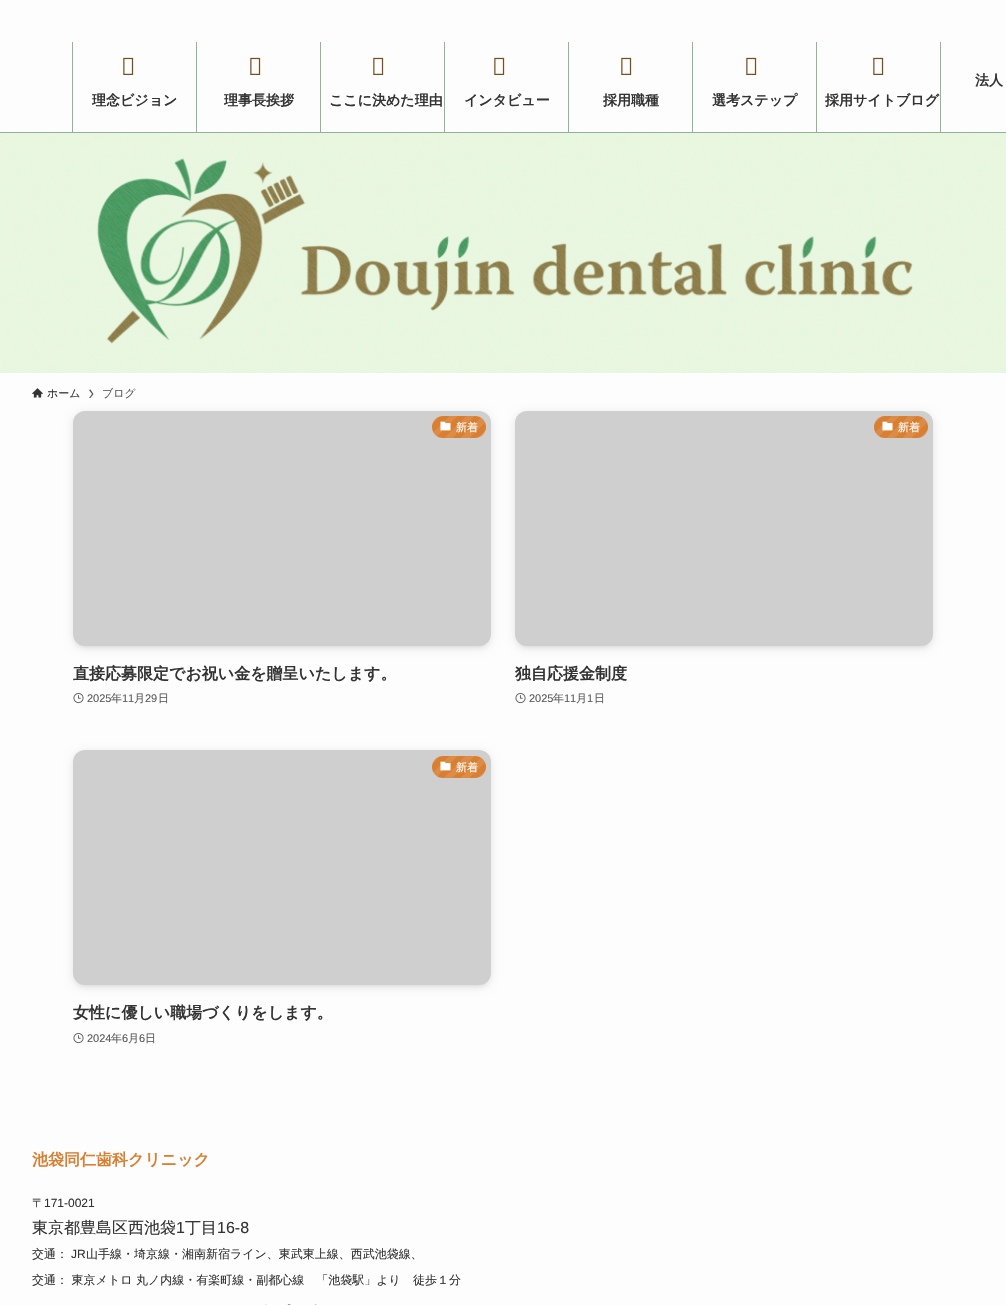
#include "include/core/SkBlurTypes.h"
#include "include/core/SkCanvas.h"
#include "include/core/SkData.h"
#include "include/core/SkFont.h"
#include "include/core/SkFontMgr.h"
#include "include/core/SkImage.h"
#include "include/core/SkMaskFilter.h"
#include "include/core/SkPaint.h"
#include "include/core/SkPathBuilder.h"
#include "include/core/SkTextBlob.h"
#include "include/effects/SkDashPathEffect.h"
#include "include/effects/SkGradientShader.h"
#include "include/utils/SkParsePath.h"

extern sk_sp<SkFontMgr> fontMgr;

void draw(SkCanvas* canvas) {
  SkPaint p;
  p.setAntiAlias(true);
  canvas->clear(SkColorSetRGB(253, 253, 253));
  p.setColor(SkColorSetRGB(228, 245, 216));
  canvas->drawRect(SkRect::MakeLTRB(0, 133, 1006, 373), p);
  p.setColor(SkColorSetRGB(146, 177, 152));
  canvas->drawRect(SkRect::MakeLTRB(0, 132, 1006, 133), p);
  p.setColor(SkColorSetRGB(147, 178, 153));
  canvas->drawRect(SkRect::MakeLTRB(940, 42, 941, 132), p);
  canvas->drawRect(SkRect::MakeLTRB(72, 42, 73, 132), p);
  canvas->drawImageRect(SkImages::DeferredFromEncodedData(SkData::MakeFromFileName("images/1.png")), SkRect::MakeLTRB(123, 57, 134, 75), SkSamplingOptions());
  canvas->drawRect(SkRect::MakeLTRB(196, 42, 197, 132), p);
  canvas->drawImageRect(SkImages::DeferredFromEncodedData(SkData::MakeFromFileName("images/1.png")), SkRect::MakeLTRB(250, 57, 261, 75), SkSamplingOptions());
  canvas->drawRect(SkRect::MakeLTRB(320, 42, 321, 132), p);
  canvas->drawImageRect(SkImages::DeferredFromEncodedData(SkData::MakeFromFileName("images/1.png")), SkRect::MakeLTRB(373, 57, 384, 75), SkSamplingOptions());
  canvas->drawRect(SkRect::MakeLTRB(444, 42, 445, 132), p);
  canvas->drawImageRect(SkImages::DeferredFromEncodedData(SkData::MakeFromFileName("images/1.png")), SkRect::MakeLTRB(494, 57, 505, 75), SkSamplingOptions());
  canvas->drawRect(SkRect::MakeLTRB(568, 42, 569, 132), p);
  canvas->drawImageRect(SkImages::DeferredFromEncodedData(SkData::MakeFromFileName("images/1.png")), SkRect::MakeLTRB(621, 57, 632, 75), SkSamplingOptions());
  canvas->drawRect(SkRect::MakeLTRB(692, 42, 693, 132), p);
  canvas->drawImageRect(SkImages::DeferredFromEncodedData(SkData::MakeFromFileName("images/1.png")), SkRect::MakeLTRB(746, 57, 757, 75), SkSamplingOptions());
  canvas->drawRect(SkRect::MakeLTRB(816, 42, 817, 132), p);
  canvas->drawImageRect(SkImages::DeferredFromEncodedData(SkData::MakeFromFileName("images/1.png")), SkRect::MakeLTRB(873, 57, 884, 75), SkSamplingOptions());
  canvas->drawImageRect(SkImages::DeferredFromEncodedData(SkData::MakeFromFileName("images/3.png")), SkRect::MakeLTRB(97, 158, 913, 344), SkSamplingOptions());
  canvas->drawImageRect(SkImages::DeferredFromEncodedData(SkData::MakeFromFileName("images/2.png")), SkRect::MakeLTRB(0, 133, 1006, 373), SkSamplingOptions());
  canvas->drawImageRect(SkImages::DeferredFromEncodedData(SkData::MakeFromFileName("images/4.png")), SkRect::MakeLTRB(32, 388, 43, 398), SkSamplingOptions());
  p.setColor(SkColorSetRGB(91, 91, 91));
  canvas->drawPath(SkPathBuilder().moveTo(90.5f, 389.5f).lineTo(89, 390).lineTo(92, 394).lineTo(89, 398).lineTo(90.5f, 398).lineTo(93.5f, 394).close().detach(), p);
  p.setColor(SkColorSetARGB(26, 0, 0, 0));
  p.setMaskFilter(SkMaskFilter::MakeBlur(kNormal_SkBlurStyle, 2));
  canvas->drawRoundRect(SkRect::MakeLTRB(77, 419, 487, 646), 8, 8, p);
  p.setMaskFilter(nullptr);
  p.setMaskFilter(SkMaskFilter::MakeBlur(kNormal_SkBlurStyle, 4));
  canvas->drawRoundRect(SkRect::MakeLTRB(73, 413, 491, 648), 12, 12, p);
  p.setMaskFilter(nullptr);
  canvas->drawImageRect(SkImages::DeferredFromEncodedData(SkData::MakeFromFileName("images/5.png")), SkRect::MakeLTRB(73, 411, 491, 646), SkSamplingOptions());
  p.setColor(SkColorSetRGB(216, 127, 49));
  canvas->drawRoundRect(SkRect::MakeLTRB(432, 416, 486, 438), 11, 11, p);
  {
    const SkColor colors[] = {SkColorSetARGB(26, 255, 255, 255), SkColorSetARGB(26, 255, 255, 255), SkColorSetARGB(0, 255, 255, 255), SkColorSetARGB(0, 255, 255, 255), SkColorSetARGB(26, 255, 255, 255), SkColorSetARGB(26, 255, 255, 255), SkColorSetARGB(0, 255, 255, 255), SkColorSetARGB(0, 255, 255, 255), SkColorSetARGB(26, 255, 255, 255), SkColorSetARGB(26, 255, 255, 255), SkColorSetARGB(0, 255, 255, 255), SkColorSetARGB(0, 255, 255, 255), SkColorSetARGB(26, 255, 255, 255), SkColorSetARGB(26, 255, 255, 255), SkColorSetARGB(0, 255, 255, 255), SkColorSetARGB(0, 255, 255, 255), SkColorSetARGB(26, 255, 255, 255), SkColorSetARGB(26, 255, 255, 255), SkColorSetARGB(0, 255, 255, 255), SkColorSetARGB(0, 0, 0, 0)};
    const float stops[] = {0, 0.1f, 0.1f, 0.2f, 0.2f, 0.3f, 0.3f, 0.4f, 0.4f, 0.5f, 0.5f, 0.6f, 0.6f, 0.7f, 0.7f, 0.8f, 0.8f, 0.9f, 0.9f, 1};
    const SkPoint ends[] = {{478, 446}, {436, 404}};
    p.setShader(SkGradientShader::MakeLinear(ends, colors, stops, 20, SkTileMode::kClamp));
    p.setAlpha(255);
  }
  canvas->drawRoundRect(SkRect::MakeLTRB(432, 416, 486, 438), 11, 11, p);
  canvas->drawImageRect(SkImages::DeferredFromEncodedData(SkData::MakeFromFileName("images/6.png")), SkRect::MakeLTRB(440, 421, 451, 431), SkSamplingOptions());
  canvas->drawImageRect(SkImages::DeferredFromEncodedData(SkData::MakeFromFileName("images/7.png")), SkRect::MakeLTRB(73, 693, 84, 704), SkSamplingOptions());
  p.setShader(nullptr);
  p.setColor(SkColorSetARGB(26, 0, 0, 0));
  p.setMaskFilter(SkMaskFilter::MakeBlur(kNormal_SkBlurStyle, 2));
  canvas->drawRoundRect(SkRect::MakeLTRB(519, 419, 929, 646), 8, 8, p);
  p.setMaskFilter(nullptr);
  p.setMaskFilter(SkMaskFilter::MakeBlur(kNormal_SkBlurStyle, 4));
  canvas->drawRoundRect(SkRect::MakeLTRB(515, 413, 933, 648), 12, 12, p);
  p.setMaskFilter(nullptr);
  canvas->drawImageRect(SkImages::DeferredFromEncodedData(SkData::MakeFromFileName("images/5.png")), SkRect::MakeLTRB(515, 411, 933, 646), SkSamplingOptions());
  p.setColor(SkColorSetRGB(216, 127, 49));
  canvas->drawRoundRect(SkRect::MakeLTRB(874, 416, 928, 438), 11, 11, p);
  {
    const SkColor colors[] = {SkColorSetARGB(26, 255, 255, 255), SkColorSetARGB(26, 255, 255, 255), SkColorSetARGB(0, 255, 255, 255), SkColorSetARGB(0, 255, 255, 255), SkColorSetARGB(26, 255, 255, 255), SkColorSetARGB(26, 255, 255, 255), SkColorSetARGB(0, 255, 255, 255), SkColorSetARGB(0, 255, 255, 255), SkColorSetARGB(26, 255, 255, 255), SkColorSetARGB(26, 255, 255, 255), SkColorSetARGB(0, 255, 255, 255), SkColorSetARGB(0, 255, 255, 255), SkColorSetARGB(26, 255, 255, 255), SkColorSetARGB(26, 255, 255, 255), SkColorSetARGB(0, 255, 255, 255), SkColorSetARGB(0, 255, 255, 255), SkColorSetARGB(26, 255, 255, 255), SkColorSetARGB(26, 255, 255, 255), SkColorSetARGB(0, 255, 255, 255), SkColorSetARGB(0, 0, 0, 0)};
    const float stops[] = {0, 0.1f, 0.1f, 0.2f, 0.2f, 0.3f, 0.3f, 0.4f, 0.4f, 0.5f, 0.5f, 0.6f, 0.6f, 0.7f, 0.7f, 0.8f, 0.8f, 0.9f, 0.9f, 1};
    const SkPoint ends[] = {{920, 446}, {878, 404}};
    p.setShader(SkGradientShader::MakeLinear(ends, colors, stops, 20, SkTileMode::kClamp));
    p.setAlpha(255);
  }
  canvas->drawRoundRect(SkRect::MakeLTRB(874, 416, 928, 438), 11, 11, p);
  canvas->drawImageRect(SkImages::DeferredFromEncodedData(SkData::MakeFromFileName("images/6.png")), SkRect::MakeLTRB(882, 421, 893, 431), SkSamplingOptions());
  canvas->drawImageRect(SkImages::DeferredFromEncodedData(SkData::MakeFromFileName("images/7.png")), SkRect::MakeLTRB(515, 693, 526, 704), SkSamplingOptions());
  p.setShader(nullptr);
  p.setColor(SkColorSetARGB(26, 0, 0, 0));
  p.setMaskFilter(SkMaskFilter::MakeBlur(kNormal_SkBlurStyle, 2));
  canvas->drawRoundRect(SkRect::MakeLTRB(77, 758, 487, 985), 8, 8, p);
  p.setMaskFilter(nullptr);
  p.setMaskFilter(SkMaskFilter::MakeBlur(kNormal_SkBlurStyle, 4));
  canvas->drawRoundRect(SkRect::MakeLTRB(73, 752, 491, 987), 12, 12, p);
  p.setMaskFilter(nullptr);
  canvas->drawImageRect(SkImages::DeferredFromEncodedData(SkData::MakeFromFileName("images/5.png")), SkRect::MakeLTRB(73, 750, 491, 985), SkSamplingOptions());
  p.setColor(SkColorSetRGB(216, 127, 49));
  canvas->drawRoundRect(SkRect::MakeLTRB(432, 756, 486, 778), 11, 11, p);
  {
    const SkColor colors[] = {SkColorSetARGB(26, 255, 255, 255), SkColorSetARGB(26, 255, 255, 255), SkColorSetARGB(0, 255, 255, 255), SkColorSetARGB(0, 255, 255, 255), SkColorSetARGB(26, 255, 255, 255), SkColorSetARGB(26, 255, 255, 255), SkColorSetARGB(0, 255, 255, 255), SkColorSetARGB(0, 255, 255, 255), SkColorSetARGB(26, 255, 255, 255), SkColorSetARGB(26, 255, 255, 255), SkColorSetARGB(0, 255, 255, 255), SkColorSetARGB(0, 255, 255, 255), SkColorSetARGB(26, 255, 255, 255), SkColorSetARGB(26, 255, 255, 255), SkColorSetARGB(0, 255, 255, 255), SkColorSetARGB(0, 255, 255, 255), SkColorSetARGB(26, 255, 255, 255), SkColorSetARGB(26, 255, 255, 255), SkColorSetARGB(0, 255, 255, 255), SkColorSetARGB(0, 0, 0, 0)};
    const float stops[] = {0, 0.1f, 0.1f, 0.2f, 0.2f, 0.3f, 0.3f, 0.4f, 0.4f, 0.5f, 0.5f, 0.6f, 0.6f, 0.7f, 0.7f, 0.8f, 0.8f, 0.9f, 0.9f, 1};
    const SkPoint ends[] = {{478, 786}, {436, 744}};
    p.setShader(SkGradientShader::MakeLinear(ends, colors, stops, 20, SkTileMode::kClamp));
    p.setAlpha(255);
  }
  canvas->drawRoundRect(SkRect::MakeLTRB(432, 756, 486, 778), 11, 11, p);
  canvas->drawImageRect(SkImages::DeferredFromEncodedData(SkData::MakeFromFileName("images/6.png")), SkRect::MakeLTRB(440, 761, 451, 771), SkSamplingOptions());
  canvas->drawImageRect(SkImages::DeferredFromEncodedData(SkData::MakeFromFileName("images/7.png")), SkRect::MakeLTRB(73, 1033, 84, 1044), SkSamplingOptions());
  canvas->drawImageRect(SkImages::DeferredFromEncodedData(SkData::MakeFromFileName("images/8.png")), SkRect::MakeLTRB(265, 1304, 317, 1305), SkSamplingOptions());
  SkFont font1(fontMgr->matchFamilyStyle("WenQuanYi Zen Hei", SkFontStyle::Bold()), 14);
  font1.setSubpixel(true);
  p.setShader(nullptr);
  p.setColor(SkColorSetRGB(51, 51, 51));
  canvas->drawString("法人", 975, 85, font1, p);
  canvas->drawString("理念ビジョン", 92, 105, font1, p);
  canvas->drawString("理事長挨拶", 224, 105, font1, p);
  canvas->drawString("ここに決めた理由", 329, 105, font1, p);
  canvas->drawString("インタビュー", 464, 105, font1, p);
  canvas->drawString("採用職種", 603, 105, font1, p);
  canvas->drawString("選考ステップ", 712, 105, font1, p);
  canvas->drawString("採用サイトブログ", 825, 105, font1, p);
  SkFont font2(fontMgr->matchFamilyStyle("WenQuanYi Zen Hei", SkFontStyle(500, SkFontStyle::kNormal_Width, SkFontStyle::kUpright_Slant)), 11);
  font2.setSubpixel(true);
  canvas->drawString("ホーム", 47, 397, font2, p);
  p.setColor(SkColorSetRGB(91, 91, 91));
  canvas->drawString("ブログ", 102, 397, font2, p);
  p.setColor(SK_ColorWHITE);
  canvas->drawString("新着", 456, 431, font2, p);
  SkFont font3(fontMgr->matchFamilyStyle("WenQuanYi Zen Hei", SkFontStyle::Bold()), 16);
  font3.setSubpixel(true);
  p.setColor(SkColorSetRGB(51, 51, 51));
  canvas->drawString("直接応募限定でお祝い金を贈呈いたします。", 73, 679, font3, p);
  SkFont font4(fontMgr->matchFamilyStyle("Liberation Sans", SkFontStyle::Normal()), 11);
  font4.setSubpixel(true);
  p.setColor(SkColorSetRGB(91, 91, 91));
  canvas->drawString("2025", 87, 702, font4, p);
  canvas->drawString("年", 111, 702, font2, p);
  canvas->drawString("11", 122, 702, font4, p);
  canvas->drawString("月", 134, 702, font2, p);
  canvas->drawString("29", 145, 702, font4, p);
  canvas->drawString("日", 158, 702, font2, p);
  p.setColor(SK_ColorWHITE);
  canvas->drawString("新着", 898, 431, font2, p);
  p.setColor(SkColorSetRGB(51, 51, 51));
  canvas->drawString("独自応援金制度", 515, 679, font3, p);
  p.setColor(SkColorSetRGB(91, 91, 91));
  canvas->drawString("2025", 529, 702, font4, p);
  canvas->drawString("年", 553, 702, font2, p);
  canvas->drawString("11", 564, 702, font4, p);
  canvas->drawString("月", 576, 702, font2, p);
  canvas->drawString("1", 587, 702, font4, p);
  canvas->drawString("日", 594, 702, font2, p);
  p.setColor(SK_ColorWHITE);
  canvas->drawString("新着", 456, 771, font2, p);
  p.setColor(SkColorSetRGB(51, 51, 51));
  canvas->drawString("女性に優しい職場づくりをします。", 73, 1018, font3, p);
  p.setColor(SkColorSetRGB(91, 91, 91));
  canvas->drawString("2024", 87, 1042, font4, p);
  canvas->drawString("年", 111, 1042, font2, p);
  canvas->drawString("6", 122, 1042, font4, p);
  canvas->drawString("月", 128, 1042, font2, p);
  canvas->drawString("6", 139, 1042, font4, p);
  canvas->drawString("日", 145, 1042, font2, p);
  p.setColor(SkColorSetRGB(216, 127, 49));
  canvas->drawString("池袋同仁歯科クリニック", 32, 1165, font3, p);
  SkFont font5(fontMgr->matchFamilyStyle("WenQuanYi Zen Hei", SkFontStyle(500, SkFontStyle::kNormal_Width, SkFontStyle::kUpright_Slant)), 12);
  font5.setSubpixel(true);
  p.setColor(SkColorSetRGB(51, 51, 51));
  canvas->drawString("〒", 32, 1207, font5, p);
  SkFont font6(fontMgr->matchFamilyStyle("Liberation Sans", SkFontStyle::Normal()), 12);
  font6.setSubpixel(true);
  canvas->drawString("171-0021", 44, 1207, font6, p);
  SkFont font7(fontMgr->matchFamilyStyle("WenQuanYi Zen Hei", SkFontStyle(500, SkFontStyle::kNormal_Width, SkFontStyle::kUpright_Slant)), 16);
  font7.setSubpixel(true);
  canvas->drawString("東京都豊島区西池袋", 32, 1233, font7, p);
  SkFont font8(fontMgr->matchFamilyStyle("Liberation Sans", SkFontStyle::Normal()), 16);
  font8.setSubpixel(true);
  canvas->drawString("1", 176, 1233, font8, p);
  canvas->drawString("丁目", 185, 1233, font7, p);
  canvas->drawString("16-8", 217, 1233, font8, p);
  canvas->drawString("交通：", 32, 1258, font5, p);
  canvas->drawString("JR", 71, 1258, font6, p);
  canvas->drawString("山手線・埼京線・湘南新宿ライン、東武東上線、西武池袋線、", 86, 1258, font5, p);
  canvas->drawString("交通： 東京メトロ 丸ノ内線・有楽町線・副都心線　「池袋駅」より　徒歩１分", 32, 1284, font5, p);
}
